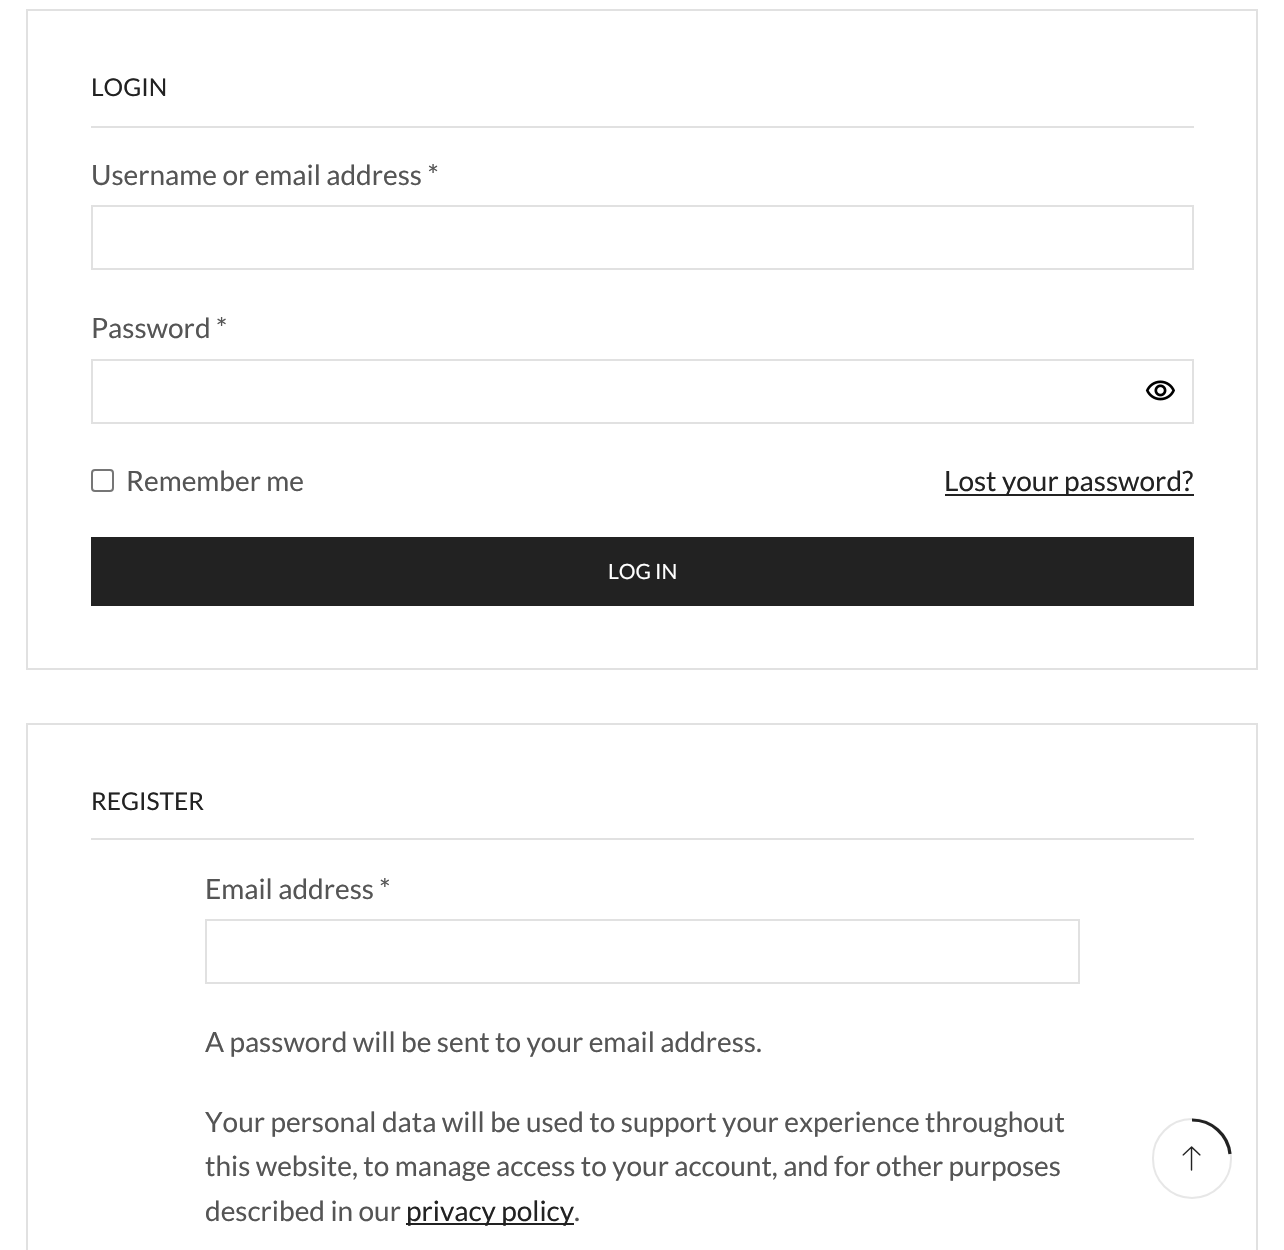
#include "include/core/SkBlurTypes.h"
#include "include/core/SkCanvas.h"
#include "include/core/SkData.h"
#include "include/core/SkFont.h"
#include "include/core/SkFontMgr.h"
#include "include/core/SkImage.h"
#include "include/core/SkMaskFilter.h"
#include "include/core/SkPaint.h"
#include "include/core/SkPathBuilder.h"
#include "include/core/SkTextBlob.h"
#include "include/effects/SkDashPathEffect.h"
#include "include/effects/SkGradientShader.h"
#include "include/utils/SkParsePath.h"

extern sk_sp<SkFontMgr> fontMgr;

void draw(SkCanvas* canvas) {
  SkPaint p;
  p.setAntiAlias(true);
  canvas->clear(SK_ColorWHITE);
  p.setStyle(SkPaint::kStroke_Style);
  p.setStrokeWidth(2);
  p.setColor(SkColorSetRGB(225, 225, 225));
  canvas->drawRect(SkRect::MakeLTRB(27, 10, 1257, 669), p);
  p.setStyle(SkPaint::kFill_Style);
  canvas->drawRect(SkRect::MakeLTRB(91, 126, 1194, 128), p);
  p.setStyle(SkPaint::kStroke_Style);
  canvas->drawRect(SkRect::MakeLTRB(92, 206, 1193, 269), p);
  canvas->drawRect(SkRect::MakeLTRB(92, 360, 1193, 423), p);
  canvas->drawImageRect(SkImages::DeferredFromEncodedData(SkData::MakeFromFileName("images/1.png")), SkRect::MakeLTRB(1145, 380, 1175, 401), SkSamplingOptions());
  p.setColor(SkColorSetRGB(118, 118, 118));
  canvas->drawRoundRect(SkRect::MakeLTRB(92, 470, 113, 491), 3, 3, p);
  p.setStyle(SkPaint::kFill_Style);
  p.setColor(SkColorSetRGB(34, 34, 34));
  canvas->drawRect(SkRect::MakeLTRB(945, 494, 1194, 496), p);
  canvas->drawRect(SkRect::MakeLTRB(91, 537, 1194, 606), p);
  p.setStyle(SkPaint::kStroke_Style);
  p.setColor(SkColorSetRGB(225, 225, 225));
  canvas->drawRect(SkRect::MakeLTRB(27, 724, 1257, 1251), p);
  p.setStyle(SkPaint::kFill_Style);
  canvas->drawRect(SkRect::MakeLTRB(91, 838, 1194, 840), p);
  p.setStyle(SkPaint::kStroke_Style);
  canvas->drawRect(SkRect::MakeLTRB(206, 920, 1079, 983), p);
  p.setStyle(SkPaint::kFill_Style);
  p.setColor(SkColorSetRGB(34, 34, 34));
  canvas->drawRect(SkRect::MakeLTRB(406, 1223, 574, 1225), p);
  p.setStyle(SkPaint::kStroke_Style);
  p.setColor(SkColorSetRGB(231, 231, 231));
  canvas->drawRoundRect(SkRect::MakeLTRB(1153, 1119, 1231, 1198), 39, 39, p);
  p.setStrokeWidth(3.2f);
  p.setColor(SkColorSetRGB(34, 34, 34));
  canvas->drawPath(SkPathBuilder().moveTo(1192, 1120).cubicTo(1211.5f, 1120, 1228, 1134.5f, 1230, 1154).detach(), p);
  canvas->drawImageRect(SkImages::DeferredFromEncodedData(SkData::MakeFromFileName("images/2.png")), SkRect::MakeLTRB(1182, 1146, 1201, 1171), SkSamplingOptions());
  SkFont font1(fontMgr->matchFamilyStyle("Lato", SkFontStyle::Normal()), 24.5f);
  font1.setSubpixel(true);
  p.setStyle(SkPaint::kFill_Style);
  canvas->drawString("LOGIN", 91, 96, font1, p);
  SkFont font2(fontMgr->matchFamilyStyle("Lato", SkFontStyle::Normal()), 28);
  font2.setSubpixel(true);
  p.setColor(SkColorSetRGB(85, 85, 85));
  canvas->drawString("Username or email address *", 91, 185, font2, p);
  canvas->drawString("Password *", 91, 338, font2, p);
  canvas->drawString("Remember me", 126, 491, font2, p);
  p.setColor(SkColorSetRGB(34, 34, 34));
  canvas->drawString("Lost your password?", 944, 491, font2, p);
  SkFont font3(fontMgr->matchFamilyStyle("Lato", SkFontStyle::Normal()), 21);
  font3.setSubpixel(true);
  p.setColor(SK_ColorWHITE);
  canvas->drawString("LOG IN", 608, 579, font3, p);
  p.setColor(SkColorSetRGB(34, 34, 34));
  canvas->drawString("REGISTER", 91, 810, font1, p);
  p.setColor(SkColorSetRGB(85, 85, 85));
  canvas->drawString("Email address *", 205, 899, font2, p);
  canvas->drawString("A password will be sent to your email address.", 205, 1052, font2, p);
  canvas->drawString("Your personal data will be used to support your experience throughout", 205, 1132, font2, p);
  canvas->drawString("this website, to manage access to your account, and for other purposes", 205, 1176, font2, p);
  canvas->drawString("described in our", 205, 1221, font2, p);
  p.setColor(SkColorSetRGB(34, 34, 34));
  canvas->drawString("privacy policy", 406, 1221, font2, p);
  p.setColor(SkColorSetRGB(85, 85, 85));
  canvas->drawString(".", 574, 1221, font2, p);
}
